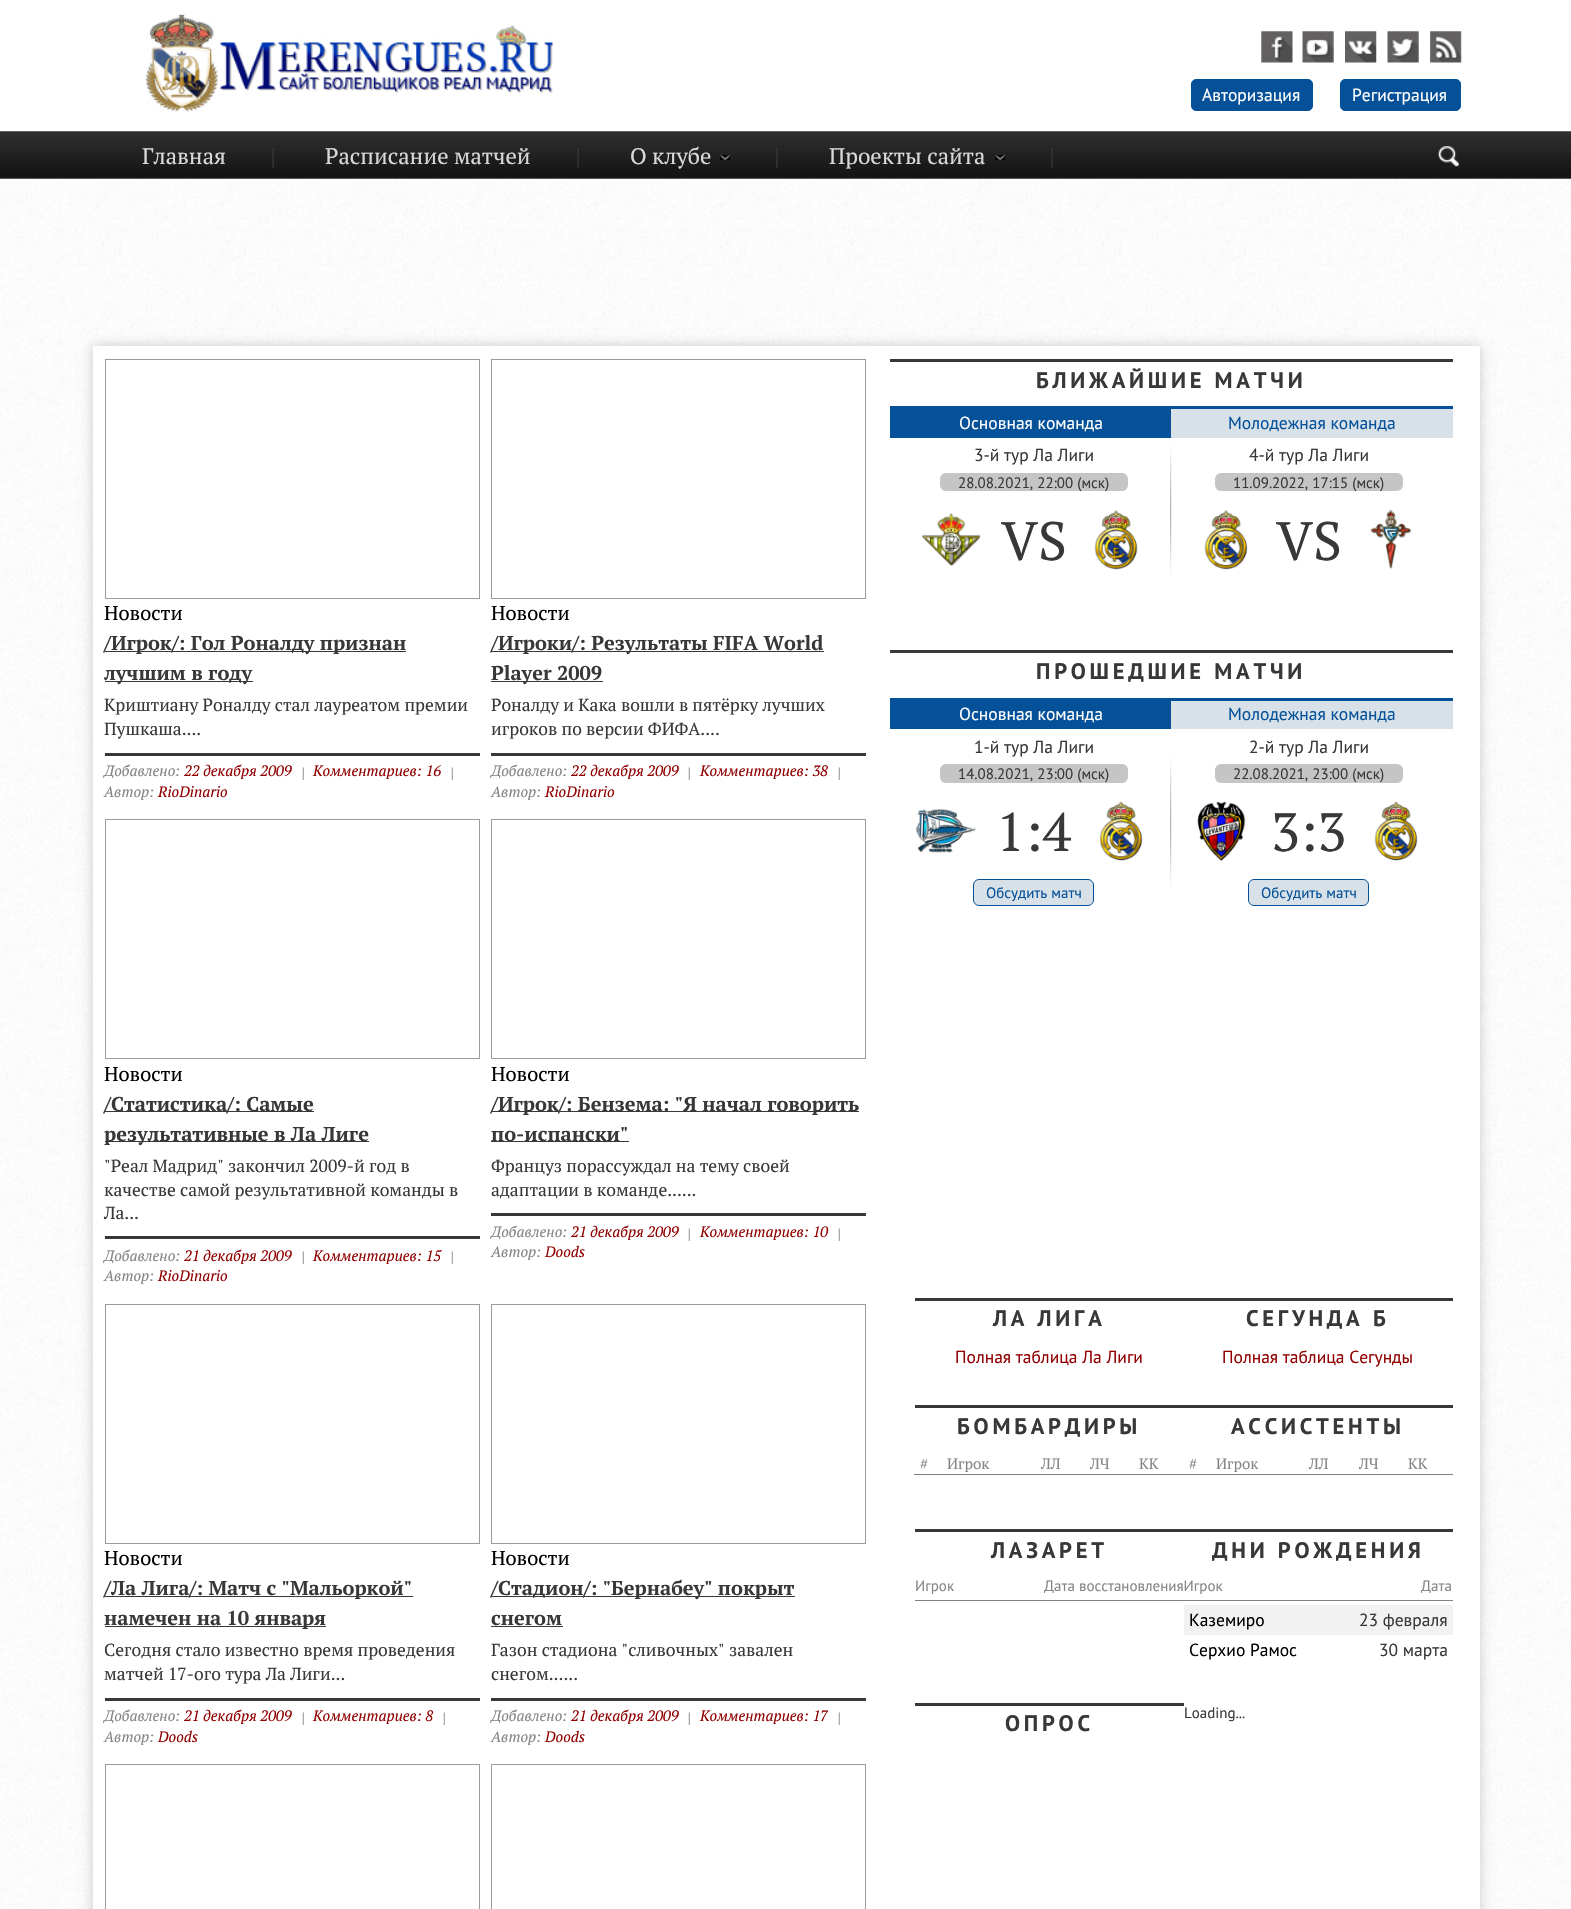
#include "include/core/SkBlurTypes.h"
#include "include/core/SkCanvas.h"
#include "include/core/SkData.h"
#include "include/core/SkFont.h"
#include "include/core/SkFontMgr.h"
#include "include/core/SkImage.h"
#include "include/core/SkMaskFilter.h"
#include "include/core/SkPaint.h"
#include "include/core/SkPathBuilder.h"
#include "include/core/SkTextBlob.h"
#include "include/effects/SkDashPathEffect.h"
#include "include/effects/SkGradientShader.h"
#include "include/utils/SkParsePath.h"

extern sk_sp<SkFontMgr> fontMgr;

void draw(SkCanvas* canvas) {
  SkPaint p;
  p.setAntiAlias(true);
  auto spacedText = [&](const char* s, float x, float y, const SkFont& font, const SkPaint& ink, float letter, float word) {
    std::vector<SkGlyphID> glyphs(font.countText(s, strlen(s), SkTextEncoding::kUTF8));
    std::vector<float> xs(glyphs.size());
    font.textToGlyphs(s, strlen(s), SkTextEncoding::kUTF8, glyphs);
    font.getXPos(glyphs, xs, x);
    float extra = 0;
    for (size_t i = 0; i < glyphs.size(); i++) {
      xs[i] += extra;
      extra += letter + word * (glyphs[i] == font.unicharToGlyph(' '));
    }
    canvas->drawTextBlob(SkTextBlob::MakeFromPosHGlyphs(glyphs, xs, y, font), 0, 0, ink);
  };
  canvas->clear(SK_ColorWHITE);
  canvas->drawImageRect(SkImages::DeferredFromEncodedData(SkData::MakeFromFileName("images/1.png")), SkRect::MakeLTRB(0, 131, 1571, 1909), SkSamplingOptions());
  canvas->drawImageRect(SkImages::DeferredFromEncodedData(SkData::MakeFromFileName("images/2.png")), SkRect::MakeLTRB(146, 14, 553, 112), SkSamplingOptions());
  canvas->drawImageRect(SkImages::DeferredFromEncodedData(SkData::MakeFromFileName("images/3.png")), SkRect::MakeLTRB(1261, 31, 1293, 63), SkSamplingOptions());
  canvas->drawImageRect(SkImages::DeferredFromEncodedData(SkData::MakeFromFileName("images/4.png")), SkRect::MakeLTRB(1302, 31, 1334, 63), SkSamplingOptions());
  canvas->drawImageRect(SkImages::DeferredFromEncodedData(SkData::MakeFromFileName("images/5.png")), SkRect::MakeLTRB(1345, 31, 1377, 63), SkSamplingOptions());
  canvas->drawImageRect(SkImages::DeferredFromEncodedData(SkData::MakeFromFileName("images/6.png")), SkRect::MakeLTRB(1387, 31, 1419, 63), SkSamplingOptions());
  canvas->drawImageRect(SkImages::DeferredFromEncodedData(SkData::MakeFromFileName("images/7.png")), SkRect::MakeLTRB(1430, 31, 1462, 63), SkSamplingOptions());
  p.setColor(SkColorSetRGB(5, 81, 153));
  canvas->drawRoundRect(SkRect::MakeLTRB(1191.5f, 79.5f, 1312.5f, 110.5f), 4.5f, 4.5f, p);
  p.setStyle(SkPaint::kStroke_Style);
  p.setStrokeWidth(1);
  p.setColor(SkColorSetRGB(4, 81, 153));
  canvas->drawRoundRect(SkRect::MakeLTRB(1191.5f, 79.5f, 1312.5f, 110.5f), 4.5f, 4.5f, p);
  p.setStyle(SkPaint::kFill_Style);
  p.setColor(SkColorSetRGB(5, 81, 153));
  canvas->drawRoundRect(SkRect::MakeLTRB(1340.5f, 79.5f, 1460.5f, 110.5f), 4.5f, 4.5f, p);
  p.setStyle(SkPaint::kStroke_Style);
  p.setColor(SkColorSetRGB(4, 81, 153));
  canvas->drawRoundRect(SkRect::MakeLTRB(1340.5f, 79.5f, 1460.5f, 110.5f), 4.5f, 4.5f, p);
  canvas->drawImageRect(SkImages::DeferredFromEncodedData(SkData::MakeFromFileName("images/8.png")), SkRect::MakeLTRB(0, 131, 1571, 179), SkSamplingOptions());
  canvas->drawImageRect(SkImages::DeferredFromEncodedData(SkData::MakeFromFileName("images/9.png")), SkRect::MakeLTRB(272, 148, 274, 168), SkSamplingOptions());
  canvas->drawImageRect(SkImages::DeferredFromEncodedData(SkData::MakeFromFileName("images/9.png")), SkRect::MakeLTRB(577, 148, 579, 168), SkSamplingOptions());
  canvas->drawImageRect(SkImages::DeferredFromEncodedData(SkData::MakeFromFileName("images/10.png")), SkRect::MakeLTRB(776, 148, 778, 168), SkSamplingOptions());
  canvas->drawImageRect(SkImages::DeferredFromEncodedData(SkData::MakeFromFileName("images/11.png")), SkRect::MakeLTRB(720, 155, 730, 160), SkSamplingOptions());
  canvas->drawImageRect(SkImages::DeferredFromEncodedData(SkData::MakeFromFileName("images/10.png")), SkRect::MakeLTRB(1051, 148, 1053, 168), SkSamplingOptions());
  canvas->drawImageRect(SkImages::DeferredFromEncodedData(SkData::MakeFromFileName("images/11.png")), SkRect::MakeLTRB(995, 155, 1005, 160), SkSamplingOptions());
  canvas->drawImageRect(SkImages::DeferredFromEncodedData(SkData::MakeFromFileName("images/12.png")), SkRect::MakeLTRB(1438, 146, 1459, 167), SkSamplingOptions());
  p.setStyle(SkPaint::kFill_Style);
  p.setColor(SkColorSetARGB(51, 0, 0, 0));
  p.setMaskFilter(SkMaskFilter::MakeBlur(kNormal_SkBlurStyle, 6));
  canvas->drawRect(SkRect::MakeLTRB(93, 346, 1480, 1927), p);
  p.setMaskFilter(nullptr);
  p.setColor(SK_ColorWHITE);
  canvas->drawRect(SkRect::MakeLTRB(93, 346, 1480, 1909), p);
  p.setStyle(SkPaint::kStroke_Style);
  p.setColor(SkColorSetRGB(155, 155, 155));
  canvas->drawRect(SkRect::MakeLTRB(105.5f, 359.5f, 479.5f, 598.5f), p);
  p.setStyle(SkPaint::kFill_Style);
  p.setColor(SkColorSetRGB(56, 56, 56));
  canvas->drawRect(SkRect::MakeLTRB(105, 651, 406, 652), p);
  canvas->drawRect(SkRect::MakeLTRB(105, 681, 253, 682), p);
  canvas->drawRect(SkRect::MakeLTRB(105, 753, 480, 756), p);
  p.setStyle(SkPaint::kStroke_Style);
  p.setColor(SkColorSetRGB(155, 155, 155));
  canvas->drawRect(SkRect::MakeLTRB(491.5f, 359.5f, 865.5f, 598.5f), p);
  p.setStyle(SkPaint::kFill_Style);
  p.setColor(SkColorSetRGB(56, 56, 56));
  canvas->drawRect(SkRect::MakeLTRB(491, 651, 824, 652), p);
  canvas->drawRect(SkRect::MakeLTRB(491, 681, 603, 682), p);
  canvas->drawRect(SkRect::MakeLTRB(491, 753, 866, 756), p);
  p.setStyle(SkPaint::kStroke_Style);
  p.setColor(SkColorSetRGB(155, 155, 155));
  canvas->drawRect(SkRect::MakeLTRB(105.5f, 819.5f, 479.5f, 1058.5f), p);
  p.setStyle(SkPaint::kFill_Style);
  p.setColor(SkColorSetRGB(56, 56, 56));
  canvas->drawRect(SkRect::MakeLTRB(105, 1111, 314, 1112), p);
  canvas->drawRect(SkRect::MakeLTRB(105, 1141, 369, 1142), p);
  canvas->drawRect(SkRect::MakeLTRB(105, 1236, 480, 1239), p);
  p.setStyle(SkPaint::kStroke_Style);
  p.setColor(SkColorSetRGB(155, 155, 155));
  canvas->drawRect(SkRect::MakeLTRB(491.5f, 819.5f, 865.5f, 1058.5f), p);
  p.setStyle(SkPaint::kFill_Style);
  p.setColor(SkColorSetRGB(56, 56, 56));
  canvas->drawRect(SkRect::MakeLTRB(491, 1111, 859, 1112), p);
  canvas->drawRect(SkRect::MakeLTRB(491, 1141, 629, 1142), p);
  canvas->drawRect(SkRect::MakeLTRB(491, 1213, 866, 1216), p);
  p.setStyle(SkPaint::kStroke_Style);
  p.setColor(SkColorSetRGB(155, 155, 155));
  canvas->drawRect(SkRect::MakeLTRB(105.5f, 1304.5f, 479.5f, 1543.5f), p);
  p.setStyle(SkPaint::kFill_Style);
  p.setColor(SkColorSetRGB(56, 56, 56));
  canvas->drawRect(SkRect::MakeLTRB(105, 1596, 413, 1597), p);
  canvas->drawRect(SkRect::MakeLTRB(105, 1626, 326, 1627), p);
  canvas->drawRect(SkRect::MakeLTRB(105, 1698, 480, 1701), p);
  p.setStyle(SkPaint::kStroke_Style);
  p.setColor(SkColorSetRGB(155, 155, 155));
  canvas->drawRect(SkRect::MakeLTRB(491.5f, 1304.5f, 865.5f, 1543.5f), p);
  p.setStyle(SkPaint::kFill_Style);
  p.setColor(SkColorSetRGB(56, 56, 56));
  canvas->drawRect(SkRect::MakeLTRB(491, 1596, 795, 1597), p);
  canvas->drawRect(SkRect::MakeLTRB(491, 1626, 563, 1627), p);
  canvas->drawRect(SkRect::MakeLTRB(491, 1698, 866, 1701), p);
  p.setStyle(SkPaint::kStroke_Style);
  p.setColor(SkColorSetRGB(155, 155, 155));
  canvas->drawRect(SkRect::MakeLTRB(105.5f, 1764.5f, 479.5f, 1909.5f), p);
  canvas->drawRect(SkRect::MakeLTRB(491.5f, 1764.5f, 865.5f, 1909.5f), p);
  p.setStyle(SkPaint::kFill_Style);
  p.setColor(SkColorSetRGB(56, 56, 56));
  canvas->drawRect(SkRect::MakeLTRB(890, 359, 1453, 362), p);
  p.setColor(SkColorSetRGB(4, 81, 153));
  canvas->drawRect(SkRect::MakeLTRB(890, 406, 1171, 438), p);
  p.setColor(SkColorSetRGB(217, 225, 232));
  canvas->drawRect(SkRect::MakeLTRB(1171, 409, 1453, 438), p);
  p.setColor(SkColorSetRGB(4, 81, 153));
  canvas->drawRect(SkRect::MakeLTRB(1171, 406, 1453, 409), p);
  canvas->drawImageRect(SkImages::DeferredFromEncodedData(SkData::MakeFromFileName("images/13.png")), SkRect::MakeLTRB(1170, 444, 1172, 575), SkSamplingOptions());
  p.setColor(SkColorSetRGB(197, 197, 197));
  canvas->drawRoundRect(SkRect::MakeLTRB(940, 473, 1128, 491), 6, 6, p);
  canvas->drawImageRect(SkImages::DeferredFromEncodedData(SkData::MakeFromFileName("images/14.png")), SkRect::MakeLTRB(921, 513, 981, 566), SkSamplingOptions());
  canvas->drawImageRect(SkImages::DeferredFromEncodedData(SkData::MakeFromFileName("images/15.png")), SkRect::MakeLTRB(1094, 510, 1138, 570), SkSamplingOptions());
  canvas->drawRoundRect(SkRect::MakeLTRB(1215, 473, 1403, 491), 6, 6, p);
  canvas->drawImageRect(SkImages::DeferredFromEncodedData(SkData::MakeFromFileName("images/15.png")), SkRect::MakeLTRB(1204, 510, 1248, 570), SkSamplingOptions());
  canvas->drawImageRect(SkImages::DeferredFromEncodedData(SkData::MakeFromFileName("images/16.png")), SkRect::MakeLTRB(1370, 509, 1412, 569), SkSamplingOptions());
  p.setColor(SkColorSetRGB(56, 56, 56));
  canvas->drawRect(SkRect::MakeLTRB(890, 650, 1453, 653), p);
  p.setColor(SkColorSetRGB(4, 81, 153));
  canvas->drawRect(SkRect::MakeLTRB(890, 698, 1171, 729), p);
  p.setColor(SkColorSetRGB(217, 225, 232));
  canvas->drawRect(SkRect::MakeLTRB(1171, 701, 1453, 729), p);
  p.setColor(SkColorSetRGB(4, 81, 153));
  canvas->drawRect(SkRect::MakeLTRB(1171, 698, 1453, 701), p);
  canvas->drawImageRect(SkImages::DeferredFromEncodedData(SkData::MakeFromFileName("images/17.png")), SkRect::MakeLTRB(1170, 756, 1172, 887), SkSamplingOptions());
  p.setColor(SkColorSetRGB(197, 197, 197));
  canvas->drawRoundRect(SkRect::MakeLTRB(940, 764, 1128, 783), 6, 6, p);
  canvas->drawImageRect(SkImages::DeferredFromEncodedData(SkData::MakeFromFileName("images/18.png")), SkRect::MakeLTRB(916, 809, 977, 853), SkSamplingOptions());
  canvas->drawImageRect(SkImages::DeferredFromEncodedData(SkData::MakeFromFileName("images/19.png")), SkRect::MakeLTRB(1099, 801, 1143, 861), SkSamplingOptions());
  p.setColor(SkColorSetRGB(217, 225, 232));
  canvas->drawRoundRect(SkRect::MakeLTRB(973.5f, 879.5f, 1093.5f, 905.5f), 5.5f, 5.5f, p);
  p.setStyle(SkPaint::kStroke_Style);
  p.setColor(SkColorSetRGB(5, 81, 153));
  canvas->drawRoundRect(SkRect::MakeLTRB(973.5f, 879.5f, 1093.5f, 905.5f), 5.5f, 5.5f, p);
  p.setStyle(SkPaint::kFill_Style);
  p.setColor(SkColorSetRGB(197, 197, 197));
  canvas->drawRoundRect(SkRect::MakeLTRB(1215, 764, 1403, 783), 6, 6, p);
  canvas->drawImageRect(SkImages::DeferredFromEncodedData(SkData::MakeFromFileName("images/20.png")), SkRect::MakeLTRB(1197, 801, 1246, 861), SkSamplingOptions());
  canvas->drawImageRect(SkImages::DeferredFromEncodedData(SkData::MakeFromFileName("images/19.png")), SkRect::MakeLTRB(1374, 801, 1418, 861), SkSamplingOptions());
  p.setColor(SkColorSetRGB(217, 225, 232));
  canvas->drawRoundRect(SkRect::MakeLTRB(1248.5f, 879.5f, 1368.5f, 905.5f), 5.5f, 5.5f, p);
  p.setStyle(SkPaint::kStroke_Style);
  p.setColor(SkColorSetRGB(5, 81, 153));
  canvas->drawRoundRect(SkRect::MakeLTRB(1248.5f, 879.5f, 1368.5f, 905.5f), 5.5f, 5.5f, p);
  p.setStyle(SkPaint::kFill_Style);
  p.setColor(SkColorSetRGB(56, 56, 56));
  canvas->drawRect(SkRect::MakeLTRB(915, 1298, 1453, 1301), p);
  canvas->drawRect(SkRect::MakeLTRB(915, 1405, 1453, 1408), p);
  p.setColor(SkColorSetRGB(129, 129, 129));
  canvas->drawRect(SkRect::MakeLTRB(914, 1474, 1453, 1475), p);
  p.setColor(SkColorSetRGB(56, 56, 56));
  canvas->drawRect(SkRect::MakeLTRB(915, 1529, 1453, 1532), p);
  p.setColor(SkColorSetRGB(129, 129, 129));
  canvas->drawRect(SkRect::MakeLTRB(915, 1600, 1453, 1601), p);
  p.setColor(SkColorSetRGB(242, 242, 242));
  canvas->drawRect(SkRect::MakeLTRB(1184, 1605, 1453, 1635), p);
  p.setColor(SkColorSetRGB(56, 56, 56));
  canvas->drawRect(SkRect::MakeLTRB(915, 1703, 1184, 1706), p);
  SkFont font1(fontMgr->matchFamilyStyle("PT Sans", SkFontStyle::Normal()), 17.5f);
  font1.setSubpixel(true);
  p.setColor(SK_ColorWHITE);
  canvas->drawString("Авторизация", 1202, 101, font1, p);
  canvas->drawString("Регистрация", 1352, 101, font1, p);
  SkFont font2(fontMgr->matchFamilyStyle("PT Serif", SkFontStyle::Normal()), 22.5f);
  font2.setSubpixel(true);
  p.setColor(SkColorSetRGB(216, 216, 216));
  canvas->drawString("Главная", 142, 164, font2, p);
  canvas->drawString("Расписание матчей", 325, 164, font2, p);
  canvas->drawString("О клубе", 630, 164, font2, p);
  canvas->drawString("Проекты сайта", 829, 164, font2, p);
  SkFont font3(fontMgr->matchFamilyStyle("PT Serif", SkFontStyle::Normal()), 20);
  font3.setSubpixel(true);
  p.setColor(SK_ColorBLACK);
  canvas->drawString("Новости", 104, 620, font3, p);
  SkFont font4(fontMgr->matchFamilyStyle("PT Serif", SkFontStyle::Bold()), 20);
  font4.setSubpixel(true);
  p.setColor(SkColorSetRGB(56, 56, 56));
  canvas->drawString("/Игрок/: Гол Роналду признан", 104, 650, font4, p);
  canvas->drawString("лучшим в году", 104, 680, font4, p);
  SkFont font5(fontMgr->matchFamilyStyle("PT Serif", SkFontStyle::Normal()), 17.5f);
  font5.setSubpixel(true);
  canvas->drawString("Криштиану Роналду стал лауреатом премии", 104, 711, font5, p);
  canvas->drawString("Пушкаша....", 104, 735, font5, p);
  SkFont font6(fontMgr->matchFamilyStyle("PT Serif", SkFontStyle::Italic()), 15);
  font6.setSubpixel(true);
  p.setColor(SkColorSetRGB(133, 133, 133));
  canvas->drawString("Добавлено:", 104, 776, font6, p);
  p.setColor(SkColorSetRGB(144, 1, 1));
  canvas->drawString("22 декабря 2009", 184, 776, font6, p);
  p.setColor(SkColorSetRGB(133, 133, 133));
  canvas->drawString("|", 301, 778, font6, p);
  p.setColor(SkColorSetRGB(144, 1, 1));
  canvas->drawString("Комментариев: 16", 313, 776, font6, p);
  p.setColor(SkColorSetRGB(133, 133, 133));
  canvas->drawString("|", 450, 778, font6, p);
  canvas->drawString("Автор:", 104, 797, font6, p);
  p.setColor(SkColorSetRGB(144, 1, 1));
  canvas->drawString("RioDinario", 158, 797, font6, p);
  p.setColor(SK_ColorBLACK);
  canvas->drawString("Новости", 491, 620, font3, p);
  p.setColor(SkColorSetRGB(56, 56, 56));
  canvas->drawString("/Игроки/: Результаты FIFA World", 491, 650, font4, p);
  canvas->drawString("Player 2009", 491, 680, font4, p);
  canvas->drawString("Роналду и Кака вошли в пятёрку лучших", 491, 711, font5, p);
  canvas->drawString("игроков по версии ФИФА....", 491, 735, font5, p);
  p.setColor(SkColorSetRGB(133, 133, 133));
  canvas->drawString("Добавлено:", 491, 776, font6, p);
  p.setColor(SkColorSetRGB(144, 1, 1));
  canvas->drawString("22 декабря 2009", 571, 776, font6, p);
  p.setColor(SkColorSetRGB(133, 133, 133));
  canvas->drawString("|", 687, 778, font6, p);
  p.setColor(SkColorSetRGB(144, 1, 1));
  canvas->drawString("Комментариев: 38", 700, 776, font6, p);
  p.setColor(SkColorSetRGB(133, 133, 133));
  canvas->drawString("|", 837, 778, font6, p);
  canvas->drawString("Автор:", 491, 797, font6, p);
  p.setColor(SkColorSetRGB(144, 1, 1));
  canvas->drawString("RioDinario", 545, 797, font6, p);
  p.setColor(SK_ColorBLACK);
  canvas->drawString("Новости", 104, 1081, font3, p);
  p.setColor(SkColorSetRGB(56, 56, 56));
  canvas->drawString("/Статистика/: Самые", 104, 1111, font4, p);
  canvas->drawString("результативные в Ла Лиге", 104, 1141, font4, p);
  canvas->drawString("\"Реал Мадрид\" закончил 2009-й год в", 104, 1172, font5, p);
  canvas->drawString("качестве самой результативной команды в", 104, 1196, font5, p);
  canvas->drawString("Ла...", 104, 1219, font5, p);
  p.setColor(SkColorSetRGB(133, 133, 133));
  canvas->drawString("Добавлено:", 104, 1261, font6, p);
  p.setColor(SkColorSetRGB(144, 1, 1));
  canvas->drawString("21 декабря 2009", 184, 1261, font6, p);
  p.setColor(SkColorSetRGB(133, 133, 133));
  canvas->drawString("|", 301, 1262, font6, p);
  p.setColor(SkColorSetRGB(144, 1, 1));
  canvas->drawString("Комментариев: 15", 313, 1261, font6, p);
  p.setColor(SkColorSetRGB(133, 133, 133));
  canvas->drawString("|", 450, 1262, font6, p);
  canvas->drawString("Автор:", 104, 1281, font6, p);
  p.setColor(SkColorSetRGB(144, 1, 1));
  canvas->drawString("RioDinario", 158, 1281, font6, p);
  p.setColor(SK_ColorBLACK);
  canvas->drawString("Новости", 491, 1081, font3, p);
  p.setColor(SkColorSetRGB(56, 56, 56));
  canvas->drawString("/Игрок/: Бензема: \"Я начал говорить", 491, 1111, font4, p);
  canvas->drawString("по-испански\"", 491, 1141, font4, p);
  canvas->drawString("Француз порассуждал на тему своей", 491, 1172, font5, p);
  canvas->drawString("адаптации в команде......", 491, 1196, font5, p);
  p.setColor(SkColorSetRGB(133, 133, 133));
  canvas->drawString("Добавлено:", 491, 1237, font6, p);
  p.setColor(SkColorSetRGB(144, 1, 1));
  canvas->drawString("21 декабря 2009", 571, 1237, font6, p);
  p.setColor(SkColorSetRGB(133, 133, 133));
  canvas->drawString("|", 687, 1239, font6, p);
  p.setColor(SkColorSetRGB(144, 1, 1));
  canvas->drawString("Комментариев: 10", 700, 1237, font6, p);
  p.setColor(SkColorSetRGB(133, 133, 133));
  canvas->drawString("|", 837, 1239, font6, p);
  canvas->drawString("Автор:", 491, 1257, font6, p);
  p.setColor(SkColorSetRGB(144, 1, 1));
  canvas->drawString("Doods", 545, 1257, font6, p);
  p.setColor(SK_ColorBLACK);
  canvas->drawString("Новости", 104, 1565, font3, p);
  p.setColor(SkColorSetRGB(56, 56, 56));
  canvas->drawString("/Ла Лига/: Матч с \"Мальoркой\"", 104, 1595, font4, p);
  canvas->drawString("намечен на 10 января", 104, 1625, font4, p);
  canvas->drawString("Сегодня стало известно время проведения", 104, 1656, font5, p);
  canvas->drawString("матчей 17-ого тура Ла Лиги...", 104, 1680, font5, p);
  p.setColor(SkColorSetRGB(133, 133, 133));
  canvas->drawString("Добавлено:", 104, 1721, font6, p);
  p.setColor(SkColorSetRGB(144, 1, 1));
  canvas->drawString("21 декабря 2009", 184, 1721, font6, p);
  p.setColor(SkColorSetRGB(133, 133, 133));
  canvas->drawString("|", 301, 1723, font6, p);
  p.setColor(SkColorSetRGB(144, 1, 1));
  canvas->drawString("Комментариев: 8", 313, 1721, font6, p);
  p.setColor(SkColorSetRGB(133, 133, 133));
  canvas->drawString("|", 442, 1723, font6, p);
  canvas->drawString("Автор:", 104, 1742, font6, p);
  p.setColor(SkColorSetRGB(144, 1, 1));
  canvas->drawString("Doods", 158, 1742, font6, p);
  p.setColor(SK_ColorBLACK);
  canvas->drawString("Новости", 491, 1565, font3, p);
  p.setColor(SkColorSetRGB(56, 56, 56));
  canvas->drawString("/Стадион/: \"Бернабеу\" покрыт", 491, 1595, font4, p);
  canvas->drawString("снегом", 491, 1625, font4, p);
  canvas->drawString("Газон стадиона \"сливочных\" завален", 491, 1656, font5, p);
  canvas->drawString("снегом......", 491, 1680, font5, p);
  p.setColor(SkColorSetRGB(133, 133, 133));
  canvas->drawString("Добавлено:", 491, 1721, font6, p);
  p.setColor(SkColorSetRGB(144, 1, 1));
  canvas->drawString("21 декабря 2009", 571, 1721, font6, p);
  p.setColor(SkColorSetRGB(133, 133, 133));
  canvas->drawString("|", 687, 1723, font6, p);
  p.setColor(SkColorSetRGB(144, 1, 1));
  canvas->drawString("Комментариев: 17", 700, 1721, font6, p);
  p.setColor(SkColorSetRGB(133, 133, 133));
  canvas->drawString("|", 837, 1723, font6, p);
  canvas->drawString("Автор:", 491, 1742, font6, p);
  p.setColor(SkColorSetRGB(144, 1, 1));
  canvas->drawString("Doods", 545, 1742, font6, p);
  SkFont font7(fontMgr->matchFamilyStyle("PT Sans", SkFontStyle::Bold()), 22.5f);
  font7.setSubpixel(true);
  p.setColor(SkColorSetRGB(56, 56, 56));
  spacedText("БЛИЖАЙШИЕ МАТЧИ", 1036, 388, font7, p, 3.75f, 0);
  p.setColor(SK_ColorWHITE);
  canvas->drawString("Основная команда", 959, 429, font1, p);
  p.setColor(SkColorSetRGB(4, 81, 153));
  canvas->drawString("Молодежная команда", 1228, 429, font1, p);
  p.setColor(SkColorSetRGB(56, 56, 56));
  canvas->drawString("3-й тур Ла Лиги", 974, 461, font1, p);
  SkFont font8(fontMgr->matchFamilyStyle("PT Sans", SkFontStyle::Normal()), 15);
  font8.setSubpixel(true);
  canvas->drawString("28.08.2021, 22:00 (мск)", 958, 488, font8, p);
  SkFont font9(fontMgr->matchFamilyStyle("PT Serif", SkFontStyle::Normal()), 54);
  font9.setSubpixel(true);
  canvas->drawString("VS", 1001, 560, font9, p);
  canvas->drawString("4-й тур Ла Лиги", 1249, 461, font1, p);
  canvas->drawString("11.09.2022, 17:15 (мск)", 1233, 488, font8, p);
  canvas->drawString("VS", 1276, 560, font9, p);
  spacedText("ПРОШЕДШИЕ МАТЧИ", 1036, 679, font7, p, 3.75f, 0);
  p.setColor(SK_ColorWHITE);
  canvas->drawString("Основная команда", 959, 720, font1, p);
  p.setColor(SkColorSetRGB(4, 81, 153));
  canvas->drawString("Молодежная команда", 1228, 720, font1, p);
  p.setColor(SkColorSetRGB(56, 56, 56));
  canvas->drawString("1-й тур Ла Лиги", 974, 753, font1, p);
  canvas->drawString("14.08.2021, 23:00 (мск)", 958, 779, font8, p);
  canvas->drawString("1:4", 996, 851, font9, p);
  p.setColor(SkColorSetRGB(4, 81, 153));
  canvas->drawString("Обсудить матч", 986, 898, font8, p);
  p.setColor(SkColorSetRGB(56, 56, 56));
  canvas->drawString("2-й тур Ла Лиги", 1249, 753, font1, p);
  canvas->drawString("22.08.2021, 23:00 (мск)", 1233, 779, font8, p);
  canvas->drawString("3:3", 1271, 851, font9, p);
  p.setColor(SkColorSetRGB(4, 81, 153));
  canvas->drawString("Обсудить матч", 1261, 898, font8, p);
  p.setColor(SkColorSetRGB(56, 56, 56));
  spacedText("ЛА ЛИГА", 993, 1326, font7, p, 3.75f, 0);
  p.setColor(SkColorSetRGB(144, 1, 1));
  canvas->drawString("Полная таблица Ла Лиги", 955, 1363, font1, p);
  p.setColor(SkColorSetRGB(56, 56, 56));
  spacedText("СЕГУНДА Б", 1246, 1326, font7, p, 3.75f, 0);
  p.setColor(SkColorSetRGB(144, 1, 1));
  canvas->drawString("Полная таблица Сегунды", 1222, 1363, font1, p);
  p.setColor(SkColorSetRGB(56, 56, 56));
  spacedText("БОМБАРДИРЫ", 957, 1434, font7, p, 3.75f, 0);
  SkFont font10(fontMgr->matchFamilyStyle("PT Serif", SkFontStyle::Normal()), 15);
  font10.setSubpixel(true);
  p.setColor(SkColorSetRGB(133, 133, 133));
  canvas->drawString("#", 920, 1469, font10, p);
  canvas->drawString("Игрок", 947, 1469, font10, p);
  canvas->drawString("ЛЛ", 1041, 1469, font10, p);
  canvas->drawString("ЛЧ", 1090, 1469, font10, p);
  canvas->drawString("КК", 1139, 1469, font10, p);
  p.setColor(SkColorSetRGB(56, 56, 56));
  spacedText("АССИСТЕНТЫ", 1231, 1434, font7, p, 3.75f, 0);
  p.setColor(SkColorSetRGB(133, 133, 133));
  canvas->drawString("#", 1189, 1469, font10, p);
  canvas->drawString("Игрок", 1216, 1469, font10, p);
  canvas->drawString("ЛЛ", 1309, 1469, font10, p);
  canvas->drawString("ЛЧ", 1359, 1469, font10, p);
  canvas->drawString("КК", 1408, 1469, font10, p);
  p.setColor(SkColorSetRGB(56, 56, 56));
  spacedText("ЛАЗАРЕТ", 991, 1558, font7, p, 3.75f, 0);
  p.setColor(SkColorSetRGB(133, 133, 133));
  canvas->drawString("Игрок", 915, 1591, font8, p);
  canvas->drawString("Дата восстановленияИгрок", 1044, 1591, font8, p);
  p.setColor(SkColorSetRGB(56, 56, 56));
  spacedText("ДНИ РОЖДЕНИЯ", 1212, 1558, font7, p, 3.75f, 0);
  p.setColor(SkColorSetRGB(133, 133, 133));
  canvas->drawString("Дата", 1421, 1591, font8, p);
  p.setColor(SK_ColorBLACK);
  canvas->drawString("Каземиро", 1189, 1626, font1, p);
  p.setColor(SkColorSetRGB(56, 56, 56));
  canvas->drawString("23 февраля", 1359, 1626, font1, p);
  p.setColor(SK_ColorBLACK);
  canvas->drawString("Серхио Рамос", 1189, 1656, font1, p);
  p.setColor(SkColorSetRGB(56, 56, 56));
  canvas->drawString("30 марта", 1379, 1656, font1, p);
  spacedText("ОПРОС", 1005, 1731, font7, p, 3.75f, 0);
  canvas->drawString("Loading...", 1184, 1718, font8, p);
}
